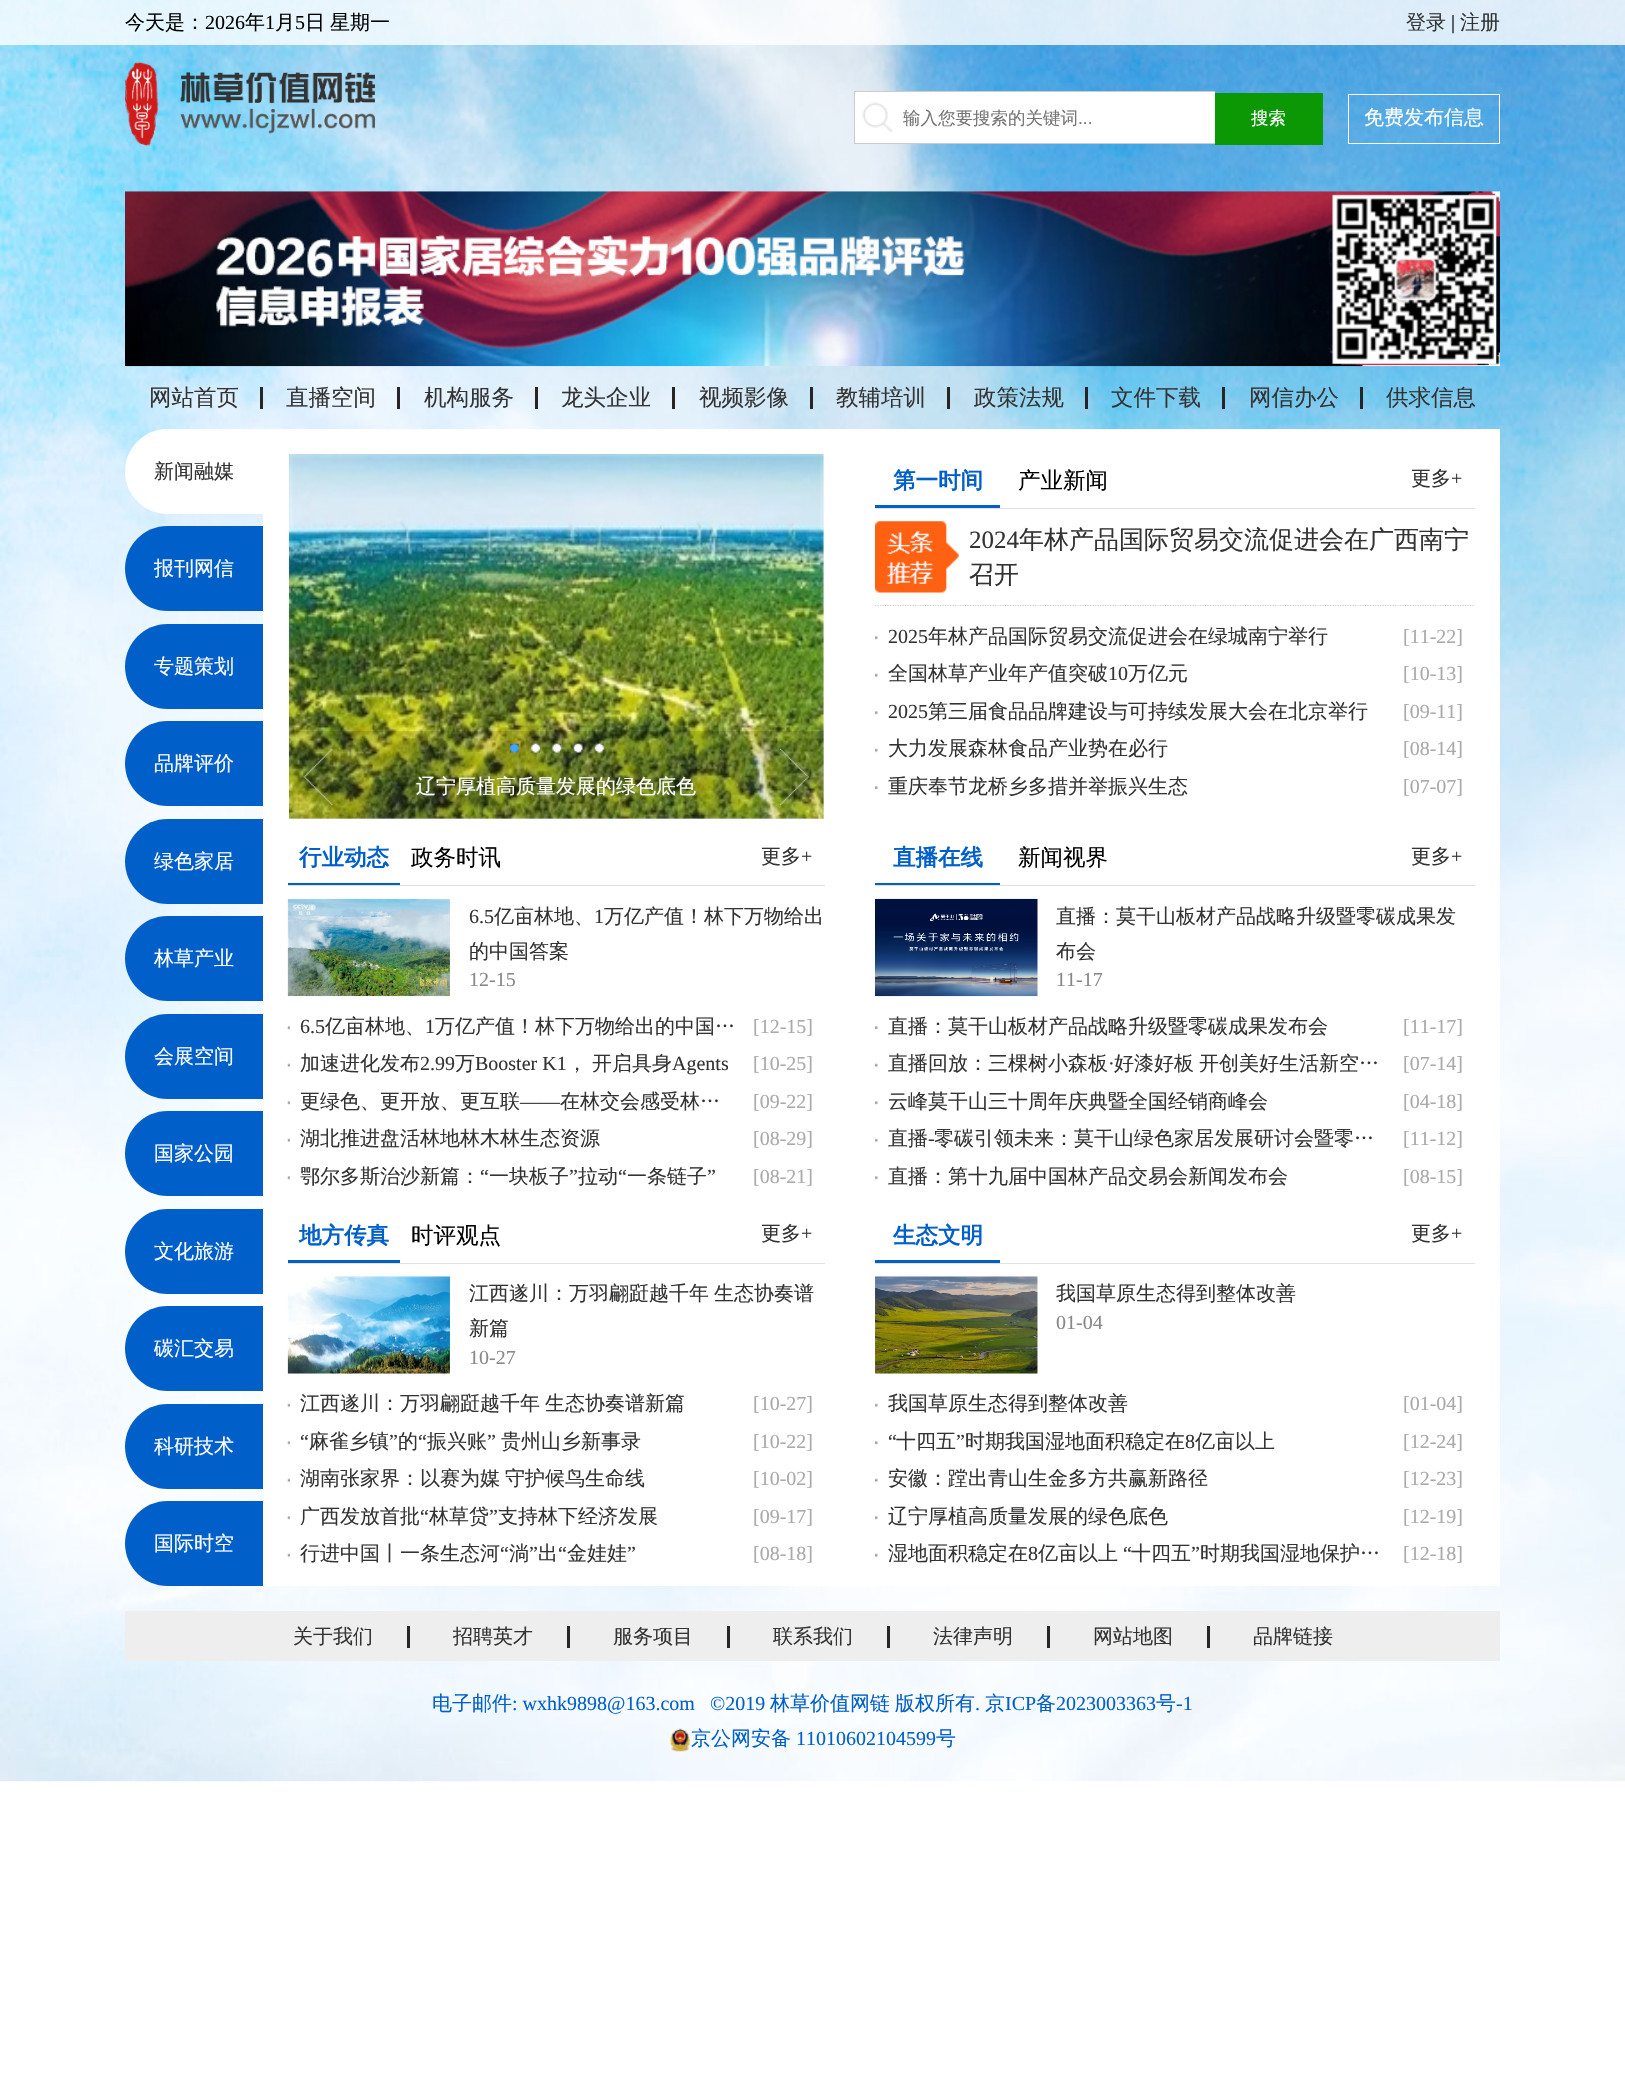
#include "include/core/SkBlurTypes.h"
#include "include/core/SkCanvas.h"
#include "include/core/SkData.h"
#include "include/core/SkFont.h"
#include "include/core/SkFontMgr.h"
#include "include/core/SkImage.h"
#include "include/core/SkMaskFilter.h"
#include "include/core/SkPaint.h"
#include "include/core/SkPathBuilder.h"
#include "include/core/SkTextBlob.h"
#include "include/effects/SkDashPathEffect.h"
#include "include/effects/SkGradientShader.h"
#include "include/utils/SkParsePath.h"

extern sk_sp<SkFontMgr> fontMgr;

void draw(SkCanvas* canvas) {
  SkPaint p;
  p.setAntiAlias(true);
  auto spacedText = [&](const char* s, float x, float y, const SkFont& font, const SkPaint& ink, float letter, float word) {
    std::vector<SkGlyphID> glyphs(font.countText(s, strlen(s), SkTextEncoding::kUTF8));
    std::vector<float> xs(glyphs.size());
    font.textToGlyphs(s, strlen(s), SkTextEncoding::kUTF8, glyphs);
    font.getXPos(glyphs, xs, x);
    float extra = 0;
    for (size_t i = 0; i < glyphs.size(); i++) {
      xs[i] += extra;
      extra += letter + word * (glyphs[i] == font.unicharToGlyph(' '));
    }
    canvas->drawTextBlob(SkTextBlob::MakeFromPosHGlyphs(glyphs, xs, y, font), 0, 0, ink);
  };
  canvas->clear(SK_ColorWHITE);
  canvas->drawImageRect(SkImages::DeferredFromEncodedData(SkData::MakeFromFileName("images/1.png")), SkRect::MakeLTRB(0, 0, 1625, 1782), SkSamplingOptions());
  p.setColor(SkColorSetARGB(204, 255, 255, 255));
  canvas->drawRect(SkRect::MakeLTRB(0, 0, 1625, 45), p);
  canvas->drawImageRect(SkImages::DeferredFromEncodedData(SkData::MakeFromFileName("images/2.png")), SkRect::MakeLTRB(125, 62, 375, 146), SkSamplingOptions());
  p.setColor(SK_ColorWHITE);
  canvas->drawRect(SkRect::MakeLTRB(855, 92, 1215, 143), p);
  canvas->drawImageRect(SkImages::DeferredFromEncodedData(SkData::MakeFromFileName("images/3.png")), SkRect::MakeLTRB(862, 102, 893, 133), SkSamplingOptions());
  p.setColor(SkColorSetRGB(204, 204, 204));
  canvas->drawRect(SkRect::MakeLTRB(854, 91, 1215, 92), p);
  canvas->drawRect(SkRect::MakeLTRB(854, 143, 1215, 144), p);
  canvas->drawRect(SkRect::MakeLTRB(854, 91, 855, 144), p);
  p.setColor(SkColorSetRGB(12, 152, 5));
  canvas->drawRect(SkRect::MakeLTRB(1215, 93, 1323, 145), p);
  p.setStyle(SkPaint::kStroke_Style);
  p.setStrokeWidth(1);
  p.setColor(SK_ColorWHITE);
  canvas->drawRect(SkRect::MakeLTRB(1348.5f, 94.5f, 1499.5f, 143.5f), p);
  canvas->drawImageRect(SkImages::DeferredFromEncodedData(SkData::MakeFromFileName("images/4.png")), SkRect::MakeLTRB(125, 191, 1500, 367), SkSamplingOptions());
  p.setStyle(SkPaint::kFill_Style);
  p.setColor(SkColorSetRGB(39, 38, 37));
  canvas->drawRect(SkRect::MakeLTRB(260, 387, 263, 409), p);
  canvas->drawRect(SkRect::MakeLTRB(397, 387, 400, 409), p);
  canvas->drawRect(SkRect::MakeLTRB(535, 387, 538, 409), p);
  canvas->drawRect(SkRect::MakeLTRB(672, 387, 675, 409), p);
  canvas->drawRect(SkRect::MakeLTRB(810, 387, 813, 409), p);
  canvas->drawRect(SkRect::MakeLTRB(947, 387, 950, 409), p);
  canvas->drawRect(SkRect::MakeLTRB(1085, 387, 1088, 409), p);
  canvas->drawRect(SkRect::MakeLTRB(1222, 387, 1225, 409), p);
  canvas->drawRect(SkRect::MakeLTRB(1360, 387, 1363, 409), p);
  p.setColor(SK_ColorWHITE);
  canvas->drawPath(SkPathBuilder().moveTo(167.5f, 429).lineTo(263, 429).lineTo(263, 514).lineTo(167.5f, 514).cubicTo(144, 514, 125, 495, 125, 471.5f).cubicTo(125, 448, 144, 429, 167.5f, 429).close().detach(), p);
  p.setColor(SkColorSetRGB(0, 95, 201));
  canvas->drawPath(SkPathBuilder().moveTo(167.5f, 526).lineTo(263, 526).lineTo(263, 611).lineTo(167.5f, 611).cubicTo(144, 611, 125, 592, 125, 568.5f).cubicTo(125, 545, 144, 526, 167.5f, 526).close().detach(), p);
  canvas->drawPath(SkPathBuilder().moveTo(167.5f, 624).lineTo(263, 624).lineTo(263, 709).lineTo(167.5f, 709).cubicTo(144, 709, 125, 690, 125, 666.5f).cubicTo(125, 643, 144, 624, 167.5f, 624).close().detach(), p);
  canvas->drawPath(SkPathBuilder().moveTo(167.5f, 721).lineTo(263, 721).lineTo(263, 806).lineTo(167.5f, 806).cubicTo(144, 806, 125, 787, 125, 763.5f).cubicTo(125, 740, 144, 721, 167.5f, 721).close().detach(), p);
  canvas->drawPath(SkPathBuilder().moveTo(167.5f, 819).lineTo(263, 819).lineTo(263, 904).lineTo(167.5f, 904).cubicTo(144, 904, 125, 885, 125, 861.5f).cubicTo(125, 838, 144, 819, 167.5f, 819).close().detach(), p);
  canvas->drawPath(SkPathBuilder().moveTo(167.5f, 916).lineTo(263, 916).lineTo(263, 1001).lineTo(167.5f, 1001).cubicTo(144, 1001, 125, 982, 125, 958.5f).cubicTo(125, 935, 144, 916, 167.5f, 916).close().detach(), p);
  canvas->drawPath(SkPathBuilder().moveTo(167.5f, 1014).lineTo(263, 1014).lineTo(263, 1099).lineTo(167.5f, 1099).cubicTo(144, 1099, 125, 1080, 125, 1056.5f).cubicTo(125, 1033, 144, 1014, 167.5f, 1014).close().detach(), p);
  canvas->drawPath(SkPathBuilder().moveTo(167.5f, 1111).lineTo(263, 1111).lineTo(263, 1196).lineTo(167.5f, 1196).cubicTo(144, 1196, 125, 1177, 125, 1153.5f).cubicTo(125, 1130, 144, 1111, 167.5f, 1111).close().detach(), p);
  canvas->drawPath(SkPathBuilder().moveTo(167.5f, 1209).lineTo(263, 1209).lineTo(263, 1294).lineTo(167.5f, 1294).cubicTo(144, 1294, 125, 1275, 125, 1251.5f).cubicTo(125, 1228, 144, 1209, 167.5f, 1209).close().detach(), p);
  canvas->drawPath(SkPathBuilder().moveTo(167.5f, 1306).lineTo(263, 1306).lineTo(263, 1391).lineTo(167.5f, 1391).cubicTo(144, 1391, 125, 1372, 125, 1348.5f).cubicTo(125, 1325, 144, 1306, 167.5f, 1306).close().detach(), p);
  canvas->drawPath(SkPathBuilder().moveTo(167.5f, 1404).lineTo(263, 1404).lineTo(263, 1489).lineTo(167.5f, 1489).cubicTo(144, 1489, 125, 1470, 125, 1446.5f).cubicTo(125, 1423, 144, 1404, 167.5f, 1404).close().detach(), p);
  canvas->drawPath(SkPathBuilder().moveTo(167.5f, 1501).lineTo(263, 1501).lineTo(263, 1586).lineTo(167.5f, 1586).cubicTo(144, 1586, 125, 1567, 125, 1543.5f).cubicTo(125, 1520, 144, 1501, 167.5f, 1501).close().detach(), p);
  p.setColor(SK_ColorWHITE);
  canvas->drawRect(SkRect::MakeLTRB(263, 429, 1500, 1586), p);
  canvas->drawImageRect(SkImages::DeferredFromEncodedData(SkData::MakeFromFileName("images/12.png")), SkRect::MakeLTRB(288, 453, 824, 819), SkSamplingOptions());
  p.setColor(SkColorSetARGB(26, 0, 0, 0));
  canvas->drawRect(SkRect::MakeLTRB(289, 731, 824, 819), p);
  canvas->drawImageRect(SkImages::DeferredFromEncodedData(SkData::MakeFromFileName("images/5.png")), SkRect::MakeLTRB(303, 748, 333, 805), SkSamplingOptions());
  canvas->drawImageRect(SkImages::DeferredFromEncodedData(SkData::MakeFromFileName("images/6.png")), SkRect::MakeLTRB(510, 743, 519, 753), SkSamplingOptions());
  canvas->drawImageRect(SkImages::DeferredFromEncodedData(SkData::MakeFromFileName("images/7.png")), SkRect::MakeLTRB(531, 743, 540, 753), SkSamplingOptions());
  canvas->drawImageRect(SkImages::DeferredFromEncodedData(SkData::MakeFromFileName("images/8.png")), SkRect::MakeLTRB(552, 743, 562, 753), SkSamplingOptions());
  canvas->drawImageRect(SkImages::DeferredFromEncodedData(SkData::MakeFromFileName("images/9.png")), SkRect::MakeLTRB(573, 743, 583, 753), SkSamplingOptions());
  canvas->drawImageRect(SkImages::DeferredFromEncodedData(SkData::MakeFromFileName("images/10.png")), SkRect::MakeLTRB(595, 743, 604, 753), SkSamplingOptions());
  canvas->drawImageRect(SkImages::DeferredFromEncodedData(SkData::MakeFromFileName("images/11.png")), SkRect::MakeLTRB(780, 748, 809, 805), SkSamplingOptions());
  canvas->drawImageRect(SkImages::DeferredFromEncodedData(SkData::MakeFromFileName("images/13.png")), SkRect::MakeLTRB(875, 521, 959, 593), SkSamplingOptions());
  p.setStyle(SkPaint::kStroke_Style);
  p.setStrokeWidth(1.2f);
  p.setColor(SkColorSetRGB(204, 204, 204));
  p.setPathEffect(SkDashPathEffect::Make({{1.25f, 1.25f}}, 0));
  canvas->drawPath(SkPathBuilder().moveTo(875, 605.5f).lineTo(1475, 605.5f).detach(), p);
  p.setPathEffect(nullptr);
  canvas->drawImageRect(SkImages::DeferredFromEncodedData(SkData::MakeFromFileName("images/14.png")), SkRect::MakeLTRB(875, 636, 878, 640), SkSamplingOptions());
  canvas->drawImageRect(SkImages::DeferredFromEncodedData(SkData::MakeFromFileName("images/15.png")), SkRect::MakeLTRB(875, 673, 878, 678), SkSamplingOptions());
  canvas->drawImageRect(SkImages::DeferredFromEncodedData(SkData::MakeFromFileName("images/14.png")), SkRect::MakeLTRB(875, 711, 878, 715), SkSamplingOptions());
  canvas->drawImageRect(SkImages::DeferredFromEncodedData(SkData::MakeFromFileName("images/15.png")), SkRect::MakeLTRB(875, 748, 878, 753), SkSamplingOptions());
  canvas->drawImageRect(SkImages::DeferredFromEncodedData(SkData::MakeFromFileName("images/14.png")), SkRect::MakeLTRB(875, 786, 878, 790), SkSamplingOptions());
  p.setStyle(SkPaint::kFill_Style);
  p.setColor(SkColorSetRGB(225, 225, 225));
  canvas->drawRect(SkRect::MakeLTRB(875, 508, 1475, 509), p);
  p.setColor(SkColorSetRGB(0, 95, 201));
  canvas->drawRect(SkRect::MakeLTRB(875, 505, 1000, 508), p);
  p.setColor(SkColorSetRGB(225, 225, 225));
  canvas->drawRect(SkRect::MakeLTRB(288, 885, 825, 886), p);
  p.setColor(SkColorSetRGB(0, 95, 201));
  canvas->drawRect(SkRect::MakeLTRB(288, 883, 400, 885), p);
  canvas->drawImageRect(SkImages::DeferredFromEncodedData(SkData::MakeFromFileName("images/16.png")), SkRect::MakeLTRB(287, 898, 450, 997), SkSamplingOptions());
  canvas->drawImageRect(SkImages::DeferredFromEncodedData(SkData::MakeFromFileName("images/17.png")), SkRect::MakeLTRB(287, 1026, 290, 1030), SkSamplingOptions());
  canvas->drawImageRect(SkImages::DeferredFromEncodedData(SkData::MakeFromFileName("images/18.png")), SkRect::MakeLTRB(287, 1063, 290, 1068), SkSamplingOptions());
  canvas->drawImageRect(SkImages::DeferredFromEncodedData(SkData::MakeFromFileName("images/17.png")), SkRect::MakeLTRB(287, 1101, 290, 1105), SkSamplingOptions());
  canvas->drawImageRect(SkImages::DeferredFromEncodedData(SkData::MakeFromFileName("images/18.png")), SkRect::MakeLTRB(287, 1138, 290, 1143), SkSamplingOptions());
  canvas->drawImageRect(SkImages::DeferredFromEncodedData(SkData::MakeFromFileName("images/17.png")), SkRect::MakeLTRB(287, 1176, 290, 1180), SkSamplingOptions());
  canvas->drawImageRect(SkImages::DeferredFromEncodedData(SkData::MakeFromFileName("images/19.png")), SkRect::MakeLTRB(875, 898, 1038, 997), SkSamplingOptions());
  canvas->drawImageRect(SkImages::DeferredFromEncodedData(SkData::MakeFromFileName("images/14.png")), SkRect::MakeLTRB(875, 1026, 878, 1030), SkSamplingOptions());
  canvas->drawImageRect(SkImages::DeferredFromEncodedData(SkData::MakeFromFileName("images/15.png")), SkRect::MakeLTRB(875, 1063, 878, 1068), SkSamplingOptions());
  canvas->drawImageRect(SkImages::DeferredFromEncodedData(SkData::MakeFromFileName("images/14.png")), SkRect::MakeLTRB(875, 1101, 878, 1105), SkSamplingOptions());
  canvas->drawImageRect(SkImages::DeferredFromEncodedData(SkData::MakeFromFileName("images/15.png")), SkRect::MakeLTRB(875, 1138, 878, 1143), SkSamplingOptions());
  canvas->drawImageRect(SkImages::DeferredFromEncodedData(SkData::MakeFromFileName("images/14.png")), SkRect::MakeLTRB(875, 1176, 878, 1180), SkSamplingOptions());
  p.setColor(SkColorSetRGB(225, 225, 225));
  canvas->drawRect(SkRect::MakeLTRB(875, 885, 1475, 886), p);
  p.setColor(SkColorSetRGB(0, 95, 201));
  canvas->drawRect(SkRect::MakeLTRB(875, 883, 1000, 885), p);
  p.setColor(SkColorSetRGB(225, 225, 225));
  canvas->drawRect(SkRect::MakeLTRB(288, 1263, 825, 1264), p);
  p.setColor(SkColorSetRGB(0, 95, 201));
  canvas->drawRect(SkRect::MakeLTRB(288, 1260, 400, 1263), p);
  canvas->drawImageRect(SkImages::DeferredFromEncodedData(SkData::MakeFromFileName("images/20.png")), SkRect::MakeLTRB(287, 1276, 450, 1374), SkSamplingOptions());
  canvas->drawImageRect(SkImages::DeferredFromEncodedData(SkData::MakeFromFileName("images/18.png")), SkRect::MakeLTRB(287, 1403, 290, 1408), SkSamplingOptions());
  canvas->drawImageRect(SkImages::DeferredFromEncodedData(SkData::MakeFromFileName("images/17.png")), SkRect::MakeLTRB(287, 1441, 290, 1445), SkSamplingOptions());
  canvas->drawImageRect(SkImages::DeferredFromEncodedData(SkData::MakeFromFileName("images/18.png")), SkRect::MakeLTRB(287, 1478, 290, 1483), SkSamplingOptions());
  canvas->drawImageRect(SkImages::DeferredFromEncodedData(SkData::MakeFromFileName("images/17.png")), SkRect::MakeLTRB(287, 1516, 290, 1520), SkSamplingOptions());
  canvas->drawImageRect(SkImages::DeferredFromEncodedData(SkData::MakeFromFileName("images/18.png")), SkRect::MakeLTRB(287, 1553, 290, 1558), SkSamplingOptions());
  canvas->drawImageRect(SkImages::DeferredFromEncodedData(SkData::MakeFromFileName("images/21.png")), SkRect::MakeLTRB(875, 1276, 1038, 1374), SkSamplingOptions());
  canvas->drawImageRect(SkImages::DeferredFromEncodedData(SkData::MakeFromFileName("images/15.png")), SkRect::MakeLTRB(875, 1403, 878, 1408), SkSamplingOptions());
  canvas->drawImageRect(SkImages::DeferredFromEncodedData(SkData::MakeFromFileName("images/14.png")), SkRect::MakeLTRB(875, 1441, 878, 1445), SkSamplingOptions());
  canvas->drawImageRect(SkImages::DeferredFromEncodedData(SkData::MakeFromFileName("images/15.png")), SkRect::MakeLTRB(875, 1478, 878, 1483), SkSamplingOptions());
  canvas->drawImageRect(SkImages::DeferredFromEncodedData(SkData::MakeFromFileName("images/14.png")), SkRect::MakeLTRB(875, 1516, 878, 1520), SkSamplingOptions());
  canvas->drawImageRect(SkImages::DeferredFromEncodedData(SkData::MakeFromFileName("images/15.png")), SkRect::MakeLTRB(875, 1553, 878, 1558), SkSamplingOptions());
  p.setColor(SkColorSetRGB(225, 225, 225));
  canvas->drawRect(SkRect::MakeLTRB(875, 1263, 1475, 1264), p);
  p.setColor(SkColorSetRGB(0, 95, 201));
  canvas->drawRect(SkRect::MakeLTRB(875, 1260, 1000, 1263), p);
  p.setColor(SkColorSetRGB(238, 238, 238));
  canvas->drawRect(SkRect::MakeLTRB(125, 1611, 1500, 1661), p);
  p.setColor(SkColorSetRGB(39, 38, 37));
  canvas->drawRect(SkRect::MakeLTRB(407, 1626, 410, 1648), p);
  canvas->drawRect(SkRect::MakeLTRB(567, 1626, 570, 1648), p);
  canvas->drawRect(SkRect::MakeLTRB(727, 1626, 730, 1648), p);
  canvas->drawRect(SkRect::MakeLTRB(887, 1626, 890, 1648), p);
  canvas->drawRect(SkRect::MakeLTRB(1047, 1626, 1050, 1648), p);
  canvas->drawRect(SkRect::MakeLTRB(1207, 1626, 1210, 1648), p);
  canvas->drawImageRect(SkImages::DeferredFromEncodedData(SkData::MakeFromFileName("images/22.png")), SkRect::MakeLTRB(669, 1728, 691, 1752), SkSamplingOptions());
  SkFont font1(fontMgr->matchFamilyStyle("WenQuanYi Zen Hei", SkFontStyle(500, SkFontStyle::kNormal_Width, SkFontStyle::kUpright_Slant)), 20);
  font1.setSubpixel(true);
  p.setColor(SK_ColorBLACK);
  canvas->drawString("今天是：", 125, 29, font1, p);
  SkFont font2(fontMgr->matchFamilyStyle("Liberation Serif", SkFontStyle::Normal()), 20);
  font2.setSubpixel(true);
  canvas->drawString("2026", 205, 29, font2, p);
  canvas->drawString("年", 245, 29, font1, p);
  canvas->drawString("1", 265, 29, font2, p);
  canvas->drawString("月", 275, 29, font1, p);
  canvas->drawString("5", 295, 29, font2, p);
  canvas->drawString("日", 305, 29, font1, p);
  canvas->drawString("星期一", 330, 29, font1, p);
  p.setColor(SkColorSetRGB(51, 51, 51));
  canvas->drawString("登录", 1406, 29, font1, p);
  p.setColor(SK_ColorBLACK);
  canvas->drawString("|", 1451, 29, font2, p);
  p.setColor(SkColorSetRGB(51, 51, 51));
  canvas->drawString("注册", 1460, 29, font1, p);
  canvas->save();
  canvas->clipRect(SkRect::MakeLTRB(903, 108, 1215, 130));
  SkFont font3(fontMgr->matchFamilyStyle("WenQuanYi Zen Hei", SkFontStyle(500, SkFontStyle::kNormal_Width, SkFontStyle::kUpright_Slant)), 17.5f);
  font3.setSubpixel(true);
  p.setColor(SkColorSetRGB(117, 117, 117));
  canvas->drawString("输入您要搜索的关键词", 903, 124, font3, p);
  canvas->restore();
  SkFont font4(fontMgr->matchFamilyStyle("Liberation Sans", SkFontStyle::Normal()), 17.5f);
  font4.setSubpixel(true);
  canvas->drawString("...", 1078, 124, font4, p);
  p.setColor(SK_ColorWHITE);
  canvas->drawString("搜索", 1251, 124, font3, p);
  canvas->drawString("免费发布信息", 1364, 124, font1, p);
  SkFont font5(fontMgr->matchFamilyStyle("WenQuanYi Zen Hei", SkFontStyle(500, SkFontStyle::kNormal_Width, SkFontStyle::kUpright_Slant)), 22.5f);
  font5.setSubpixel(true);
  p.setColor(SkColorSetRGB(51, 51, 51));
  canvas->drawString("网站首页", 149, 405, font5, p);
  canvas->drawString("直播空间", 286, 405, font5, p);
  canvas->drawString("机构服务", 424, 405, font5, p);
  canvas->drawString("龙头企业", 561, 405, font5, p);
  canvas->drawString("视频影像", 699, 405, font5, p);
  canvas->drawString("教辅培训", 836, 405, font5, p);
  canvas->drawString("政策法规", 974, 405, font5, p);
  canvas->drawString("文件下载", 1111, 405, font5, p);
  canvas->drawString("网信办公", 1249, 405, font5, p);
  canvas->drawString("供求信息", 1386, 405, font5, p);
  canvas->drawString("新闻融媒", 154, 478, font1, p);
  p.setColor(SK_ColorWHITE);
  canvas->drawString("报刊网信", 154, 575, font1, p);
  canvas->drawString("专题策划", 154, 673, font1, p);
  canvas->drawString("品牌评价", 154, 770, font1, p);
  canvas->drawString("绿色家居", 154, 868, font1, p);
  canvas->drawString("林草产业", 154, 965, font1, p);
  canvas->drawString("会展空间", 154, 1063, font1, p);
  canvas->drawString("国家公园", 154, 1160, font1, p);
  canvas->drawString("文化旅游", 154, 1258, font1, p);
  canvas->drawString("碳汇交易", 154, 1355, font1, p);
  canvas->drawString("科研技术", 154, 1453, font1, p);
  canvas->drawString("国际时空", 154, 1550, font1, p);
  canvas->drawString("辽宁厚植高质量发展的绿色底色", 416, 793, font1, p);
  p.setColor(SkColorSetRGB(51, 51, 51));
  canvas->drawString("更多", 1411, 485, font1, p);
  canvas->drawString("+", 1451, 485, font2, p);
  SkFont font6(fontMgr->matchFamilyStyle("Liberation Serif", SkFontStyle::Normal()), 25);
  font6.setSubpixel(true);
  canvas->drawString("2024", 969, 548, font6, p);
  SkFont font7(fontMgr->matchFamilyStyle("WenQuanYi Zen Hei", SkFontStyle(500, SkFontStyle::kNormal_Width, SkFontStyle::kUpright_Slant)), 25);
  font7.setSubpixel(true);
  canvas->drawString("年林产品国际贸易交流促进会在广西南宁", 1019, 548, font7, p);
  canvas->drawString("召开", 969, 583, font7, p);
  canvas->drawString("2025", 888, 643, font2, p);
  canvas->drawString("年林产品国际贸易交流促进会在绿城南宁举行", 928, 643, font1, p);
  p.setColor(SkColorSetRGB(170, 170, 170));
  canvas->drawString("[11-22]", 1403, 643, font2, p);
  p.setColor(SkColorSetRGB(51, 51, 51));
  canvas->drawString("全国林草产业年产值突破", 888, 680, font1, p);
  canvas->drawString("10", 1108, 680, font2, p);
  canvas->drawString("万亿元", 1128, 680, font1, p);
  p.setColor(SkColorSetRGB(170, 170, 170));
  canvas->drawString("[10-13]", 1403, 680, font2, p);
  p.setColor(SkColorSetRGB(51, 51, 51));
  canvas->drawString("2025", 888, 718, font2, p);
  canvas->drawString("第三届食品品牌建设与可持续发展大会在北京举行", 928, 718, font1, p);
  p.setColor(SkColorSetRGB(170, 170, 170));
  canvas->drawString("[09-11]", 1403, 718, font2, p);
  p.setColor(SkColorSetRGB(51, 51, 51));
  canvas->drawString("大力发展森林食品产业势在必行", 888, 755, font1, p);
  p.setColor(SkColorSetRGB(170, 170, 170));
  canvas->drawString("[08-14]", 1403, 755, font2, p);
  p.setColor(SkColorSetRGB(51, 51, 51));
  canvas->drawString("重庆奉节龙桥乡多措并举振兴生态", 888, 793, font1, p);
  p.setColor(SkColorSetRGB(170, 170, 170));
  canvas->drawString("[07-07]", 1403, 793, font2, p);
  SkFont font8(fontMgr->matchFamilyStyle("WenQuanYi Zen Hei", SkFontStyle::Bold()), 22.5f);
  font8.setSubpixel(true);
  p.setColor(SkColorSetRGB(0, 95, 201));
  canvas->drawString("第一时间", 893, 488, font8, p);
  p.setColor(SK_ColorBLACK);
  canvas->drawString("产业新闻", 1018, 488, font5, p);
  p.setColor(SkColorSetRGB(0, 95, 201));
  canvas->drawString("行业动态", 299, 865, font8, p);
  p.setColor(SK_ColorBLACK);
  canvas->drawString("政务时讯", 411, 865, font5, p);
  p.setColor(SkColorSetRGB(51, 51, 51));
  canvas->drawString("更多", 761, 863, font1, p);
  canvas->drawString("+", 801, 863, font2, p);
  canvas->drawString("6.5", 469, 923, font2, p);
  canvas->drawString("亿亩林地、", 494, 923, font1, p);
  canvas->drawString("1", 594, 923, font2, p);
  canvas->drawString("万亿产值！林下万物给出", 604, 923, font1, p);
  canvas->drawString("的中国答案", 469, 958, font1, p);
  p.setColor(SkColorSetRGB(136, 136, 136));
  canvas->drawString("12-15", 469, 986, font2, p);
  p.setColor(SkColorSetRGB(51, 51, 51));
  canvas->drawString("6.5", 300, 1033, font2, p);
  canvas->drawString("亿亩林地、", 325, 1033, font1, p);
  canvas->drawString("1", 425, 1033, font2, p);
  canvas->drawString("万亿产值！林下万物给出的中国…", 435, 1033, font1, p);
  p.setColor(SkColorSetRGB(170, 170, 170));
  canvas->drawString("[12-15]", 753, 1033, font2, p);
  p.setColor(SkColorSetRGB(51, 51, 51));
  canvas->drawString("加速进化发布", 300, 1070, font1, p);
  canvas->drawString("2.99", 420, 1070, font2, p);
  canvas->drawString("万", 455, 1070, font1, p);
  canvas->drawString("Booster K1", 475, 1070, font2, p);
  canvas->drawString("，", 567, 1070, font1, p);
  canvas->drawString("开启具身", 592, 1070, font1, p);
  canvas->drawString("Agents", 672, 1070, font2, p);
  p.setColor(SkColorSetRGB(170, 170, 170));
  canvas->drawString("[10-25]", 753, 1070, font2, p);
  p.setColor(SkColorSetRGB(51, 51, 51));
  canvas->drawString("更绿色、更开放、更互联", 300, 1108, font1, p);
  canvas->drawString("——", 520, 1108, font2, p);
  canvas->drawString("在林交会感受林…", 560, 1108, font1, p);
  p.setColor(SkColorSetRGB(170, 170, 170));
  canvas->drawString("[09-22]", 753, 1108, font2, p);
  p.setColor(SkColorSetRGB(51, 51, 51));
  canvas->drawString("湖北推进盘活林地林木林生态资源", 300, 1145, font1, p);
  p.setColor(SkColorSetRGB(170, 170, 170));
  canvas->drawString("[08-29]", 753, 1145, font2, p);
  p.setColor(SkColorSetRGB(51, 51, 51));
  canvas->drawString("鄂尔多斯治沙新篇：", 300, 1183, font1, p);
  canvas->drawString("“", 480, 1183, font2, p);
  canvas->drawString("一块板子", 489, 1183, font1, p);
  canvas->drawString("”", 569, 1183, font2, p);
  canvas->drawString("拉动", 578, 1183, font1, p);
  canvas->drawString("“", 618, 1183, font2, p);
  canvas->drawString("一条链子", 627, 1183, font1, p);
  canvas->drawString("”", 707, 1183, font2, p);
  p.setColor(SkColorSetRGB(170, 170, 170));
  canvas->drawString("[08-21]", 753, 1183, font2, p);
  p.setColor(SkColorSetRGB(51, 51, 51));
  canvas->drawString("更多", 1411, 863, font1, p);
  canvas->drawString("+", 1451, 863, font2, p);
  canvas->drawString("直播：莫干山板材产品战略升级暨零碳成果发", 1056, 923, font1, p);
  canvas->drawString("布会", 1056, 958, font1, p);
  p.setColor(SkColorSetRGB(136, 136, 136));
  canvas->drawString("11-17", 1056, 986, font2, p);
  p.setColor(SkColorSetRGB(51, 51, 51));
  canvas->drawString("直播：莫干山板材产品战略升级暨零碳成果发布会", 888, 1033, font1, p);
  p.setColor(SkColorSetRGB(170, 170, 170));
  canvas->drawString("[11-17]", 1403, 1033, font2, p);
  p.setColor(SkColorSetRGB(51, 51, 51));
  canvas->drawString("直播回放：三棵树小森板", 888, 1070, font1, p);
  canvas->drawString("·", 1108, 1070, font2, p);
  spacedText("好漆好板 开创美好生活新空…", 1114, 1070, font1, p, 0, -1);
  p.setColor(SkColorSetRGB(170, 170, 170));
  canvas->drawString("[07-14]", 1403, 1070, font2, p);
  p.setColor(SkColorSetRGB(51, 51, 51));
  canvas->drawString("云峰莫干山三十周年庆典暨全国经销商峰会", 888, 1108, font1, p);
  p.setColor(SkColorSetRGB(170, 170, 170));
  canvas->drawString("[04-18]", 1403, 1108, font2, p);
  p.setColor(SkColorSetRGB(51, 51, 51));
  canvas->drawString("直播", 888, 1145, font1, p);
  canvas->drawString("-", 928, 1145, font2, p);
  canvas->drawString("零碳引领未来：莫干山绿色家居发展研讨会暨零…", 934, 1145, font1, p);
  p.setColor(SkColorSetRGB(170, 170, 170));
  canvas->drawString("[11-12]", 1403, 1145, font2, p);
  p.setColor(SkColorSetRGB(51, 51, 51));
  canvas->drawString("直播：第十九届中国林产品交易会新闻发布会", 888, 1183, font1, p);
  p.setColor(SkColorSetRGB(170, 170, 170));
  canvas->drawString("[08-15]", 1403, 1183, font2, p);
  p.setColor(SkColorSetRGB(0, 95, 201));
  canvas->drawString("直播在线", 893, 865, font8, p);
  p.setColor(SK_ColorBLACK);
  canvas->drawString("新闻视界", 1018, 865, font5, p);
  p.setColor(SkColorSetRGB(0, 95, 201));
  canvas->drawString("地方传真", 299, 1243, font8, p);
  p.setColor(SK_ColorBLACK);
  canvas->drawString("时评观点", 411, 1243, font5, p);
  p.setColor(SkColorSetRGB(51, 51, 51));
  canvas->drawString("更多", 761, 1240, font1, p);
  canvas->drawString("+", 801, 1240, font2, p);
  spacedText("江西遂川：万羽翩跹越千年 生态协奏谱", 469, 1300, font1, p, 0, -1);
  canvas->drawString("新篇", 469, 1335, font1, p);
  p.setColor(SkColorSetRGB(136, 136, 136));
  canvas->drawString("10-27", 469, 1364, font2, p);
  p.setColor(SkColorSetRGB(51, 51, 51));
  spacedText("江西遂川：万羽翩跹越千年 生态协奏谱新篇", 300, 1410, font1, p, 0, -1);
  p.setColor(SkColorSetRGB(170, 170, 170));
  canvas->drawString("[10-27]", 753, 1410, font2, p);
  p.setColor(SkColorSetRGB(51, 51, 51));
  canvas->drawString("“", 300, 1448, font2, p);
  canvas->drawString("麻雀乡镇", 309, 1448, font1, p);
  canvas->drawString("”", 389, 1448, font2, p);
  canvas->drawString("的", 398, 1448, font1, p);
  canvas->drawString("“", 418, 1448, font2, p);
  canvas->drawString("振兴账", 427, 1448, font1, p);
  canvas->drawString("”", 487, 1448, font2, p);
  canvas->drawString("贵州山乡新事录", 501, 1448, font1, p);
  p.setColor(SkColorSetRGB(170, 170, 170));
  canvas->drawString("[10-22]", 753, 1448, font2, p);
  p.setColor(SkColorSetRGB(51, 51, 51));
  spacedText("湖南张家界：以赛为媒 守护候鸟生命线", 300, 1485, font1, p, 0, -1);
  p.setColor(SkColorSetRGB(170, 170, 170));
  canvas->drawString("[10-02]", 753, 1485, font2, p);
  p.setColor(SkColorSetRGB(51, 51, 51));
  canvas->drawString("广西发放首批", 300, 1523, font1, p);
  canvas->drawString("“", 420, 1523, font2, p);
  canvas->drawString("林草贷", 429, 1523, font1, p);
  canvas->drawString("”", 489, 1523, font2, p);
  canvas->drawString("支持林下经济发展", 498, 1523, font1, p);
  p.setColor(SkColorSetRGB(170, 170, 170));
  canvas->drawString("[09-17]", 753, 1523, font2, p);
  p.setColor(SkColorSetRGB(51, 51, 51));
  canvas->drawString("行进中国丨一条生态河", 300, 1560, font1, p);
  canvas->drawString("“", 500, 1560, font2, p);
  canvas->drawString("淌", 509, 1560, font1, p);
  canvas->drawString("”", 529, 1560, font2, p);
  canvas->drawString("出", 538, 1560, font1, p);
  canvas->drawString("“", 558, 1560, font2, p);
  canvas->drawString("金娃娃", 567, 1560, font1, p);
  canvas->drawString("”", 627, 1560, font2, p);
  p.setColor(SkColorSetRGB(170, 170, 170));
  canvas->drawString("[08-18]", 753, 1560, font2, p);
  p.setColor(SkColorSetRGB(51, 51, 51));
  canvas->drawString("更多", 1411, 1240, font1, p);
  canvas->drawString("+", 1451, 1240, font2, p);
  canvas->drawString("我国草原生态得到整体改善", 1056, 1300, font1, p);
  p.setColor(SkColorSetRGB(136, 136, 136));
  canvas->drawString("01-04", 1056, 1329, font2, p);
  p.setColor(SkColorSetRGB(51, 51, 51));
  canvas->drawString("我国草原生态得到整体改善", 888, 1410, font1, p);
  p.setColor(SkColorSetRGB(170, 170, 170));
  canvas->drawString("[01-04]", 1403, 1410, font2, p);
  p.setColor(SkColorSetRGB(51, 51, 51));
  canvas->drawString("“", 888, 1448, font2, p);
  canvas->drawString("十四五", 896, 1448, font1, p);
  canvas->drawString("”", 956, 1448, font2, p);
  canvas->drawString("时期我国湿地面积稳定在", 965, 1448, font1, p);
  canvas->drawString("8", 1185, 1448, font2, p);
  canvas->drawString("亿亩以上", 1195, 1448, font1, p);
  p.setColor(SkColorSetRGB(170, 170, 170));
  canvas->drawString("[12-24]", 1403, 1448, font2, p);
  p.setColor(SkColorSetRGB(51, 51, 51));
  canvas->drawString("安徽：蹚出青山生金多方共赢新路径", 888, 1485, font1, p);
  p.setColor(SkColorSetRGB(170, 170, 170));
  canvas->drawString("[12-23]", 1403, 1485, font2, p);
  p.setColor(SkColorSetRGB(51, 51, 51));
  canvas->drawString("辽宁厚植高质量发展的绿色底色", 888, 1523, font1, p);
  p.setColor(SkColorSetRGB(170, 170, 170));
  canvas->drawString("[12-19]", 1403, 1523, font2, p);
  p.setColor(SkColorSetRGB(51, 51, 51));
  canvas->drawString("湿地面积稳定在", 888, 1560, font1, p);
  canvas->drawString("8", 1028, 1560, font2, p);
  canvas->drawString("亿亩以上", 1038, 1560, font1, p);
  canvas->drawString("“", 1123, 1560, font2, p);
  canvas->drawString("十四五", 1131, 1560, font1, p);
  canvas->drawString("”", 1191, 1560, font2, p);
  canvas->drawString("时期我国湿地保护…", 1200, 1560, font1, p);
  p.setColor(SkColorSetRGB(170, 170, 170));
  canvas->drawString("[12-18]", 1403, 1560, font2, p);
  p.setColor(SkColorSetRGB(0, 95, 201));
  canvas->drawString("生态文明", 893, 1243, font8, p);
  p.setColor(SkColorSetRGB(51, 51, 51));
  canvas->drawString("关于我们", 293, 1643, font1, p);
  canvas->drawString("招聘英才", 453, 1643, font1, p);
  canvas->drawString("服务项目", 613, 1643, font1, p);
  canvas->drawString("联系我们", 773, 1643, font1, p);
  canvas->drawString("法律声明", 933, 1643, font1, p);
  canvas->drawString("网站地图", 1093, 1643, font1, p);
  canvas->drawString("品牌链接", 1253, 1643, font1, p);
  p.setColor(SkColorSetRGB(0, 95, 201));
  canvas->drawString("电子邮件", 432, 1710, font1, p);
  canvas->drawString(": wxhk9898@163.com", 512, 1710, font2, p);
  canvas->drawString("©2019", 710, 1710, font2, p);
  canvas->drawString("林草价值网链", 770, 1710, font1, p);
  canvas->drawString("版权所有", 895, 1710, font1, p);
  canvas->drawString(".", 975, 1710, font2, p);
  canvas->drawString("京", 985, 1710, font1, p);
  canvas->drawString("ICP", 1005, 1710, font2, p);
  canvas->drawString("备", 1036, 1710, font1, p);
  canvas->drawString("2023003363", 1056, 1710, font2, p);
  canvas->drawString("号", 1156, 1710, font1, p);
  canvas->drawString("-1", 1176, 1710, font2, p);
  canvas->drawString("京公网安备", 691, 1745, font1, p);
  canvas->drawString("11010602104599", 796, 1745, font2, p);
  canvas->drawString("号", 936, 1745, font1, p);
}
